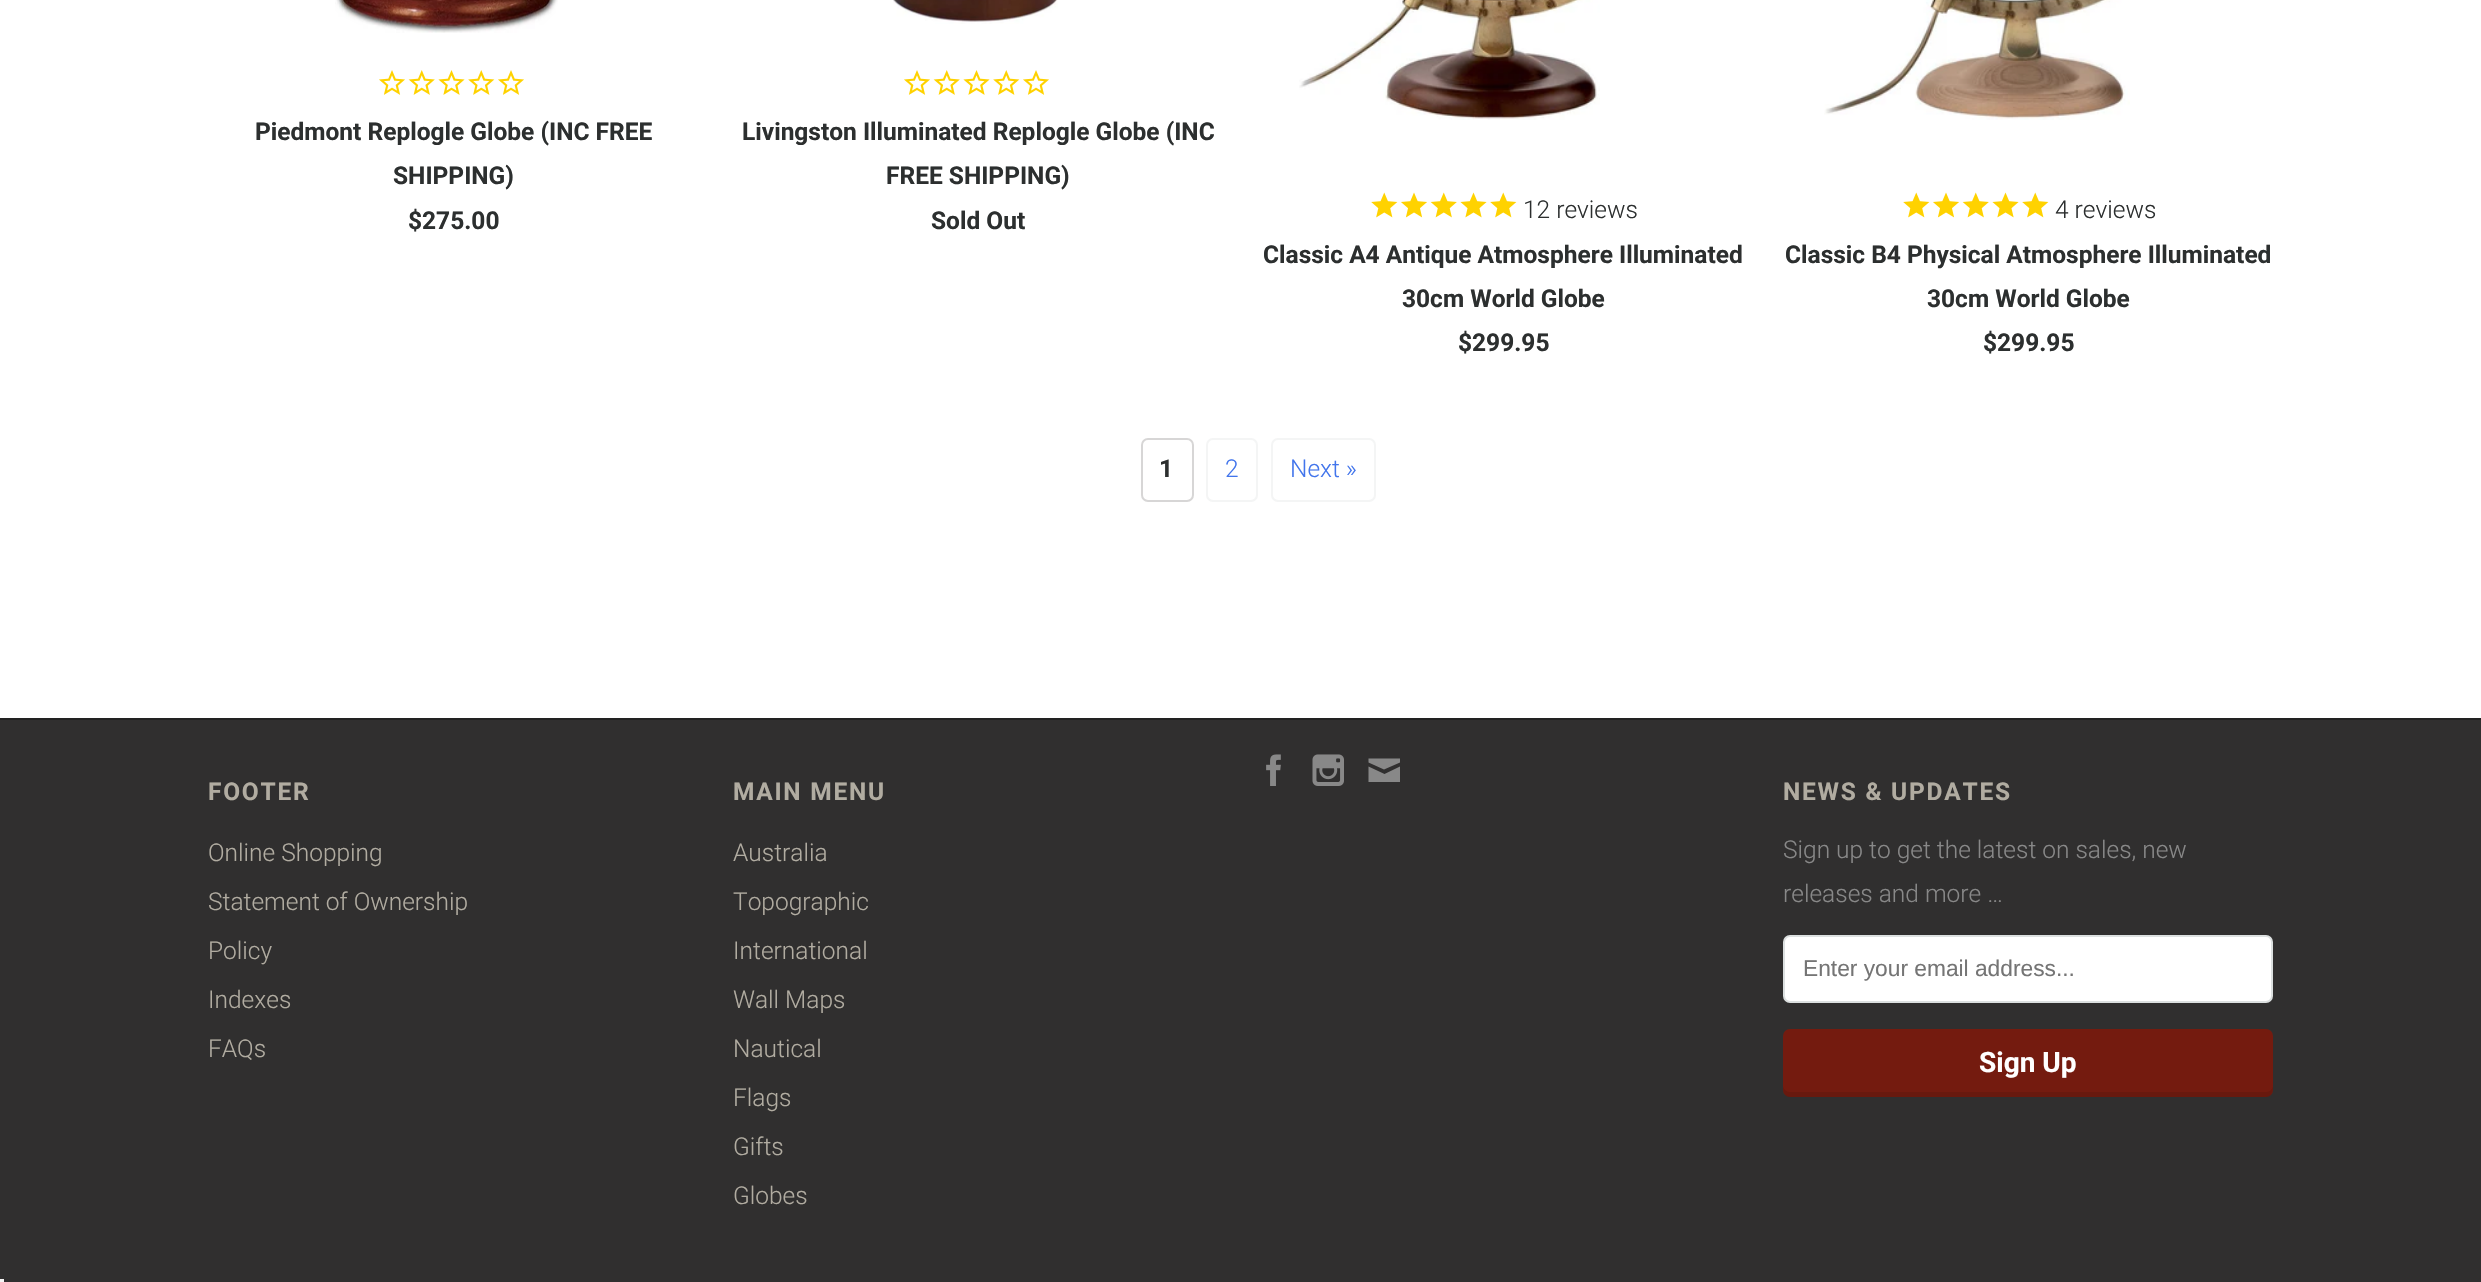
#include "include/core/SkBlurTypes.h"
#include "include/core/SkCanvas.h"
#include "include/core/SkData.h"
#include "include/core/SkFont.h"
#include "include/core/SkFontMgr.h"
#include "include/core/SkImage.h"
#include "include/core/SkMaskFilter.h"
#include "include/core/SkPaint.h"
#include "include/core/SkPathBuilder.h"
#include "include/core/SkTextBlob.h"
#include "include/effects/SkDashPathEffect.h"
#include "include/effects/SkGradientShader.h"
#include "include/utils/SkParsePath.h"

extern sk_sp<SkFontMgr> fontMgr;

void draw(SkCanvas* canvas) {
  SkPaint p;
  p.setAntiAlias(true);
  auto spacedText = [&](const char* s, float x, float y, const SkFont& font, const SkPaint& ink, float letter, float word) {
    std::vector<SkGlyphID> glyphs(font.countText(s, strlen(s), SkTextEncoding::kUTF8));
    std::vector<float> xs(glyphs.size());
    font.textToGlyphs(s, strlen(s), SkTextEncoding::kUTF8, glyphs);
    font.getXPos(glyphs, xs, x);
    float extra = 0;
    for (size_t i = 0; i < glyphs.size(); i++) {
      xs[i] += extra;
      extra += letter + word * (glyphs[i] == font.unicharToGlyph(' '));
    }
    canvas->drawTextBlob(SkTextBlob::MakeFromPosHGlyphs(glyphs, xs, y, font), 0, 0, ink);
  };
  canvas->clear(SK_ColorWHITE);
  canvas->drawImageRect(SkImages::DeferredFromEncodedData(SkData::MakeFromFileName("images/1.png")), SkRect::MakeLTRB(335, 0, 558, 33), SkSamplingOptions());
  canvas->drawImageRect(SkImages::DeferredFromEncodedData(SkData::MakeFromFileName("images/2.png")), SkRect::MakeLTRB(379, 70, 405, 95), SkSamplingOptions());
  canvas->drawImageRect(SkImages::DeferredFromEncodedData(SkData::MakeFromFileName("images/3.png")), SkRect::MakeLTRB(408, 70, 435, 95), SkSamplingOptions());
  canvas->drawImageRect(SkImages::DeferredFromEncodedData(SkData::MakeFromFileName("images/4.png")), SkRect::MakeLTRB(438, 70, 465, 95), SkSamplingOptions());
  canvas->drawImageRect(SkImages::DeferredFromEncodedData(SkData::MakeFromFileName("images/5.png")), SkRect::MakeLTRB(468, 70, 495, 95), SkSamplingOptions());
  canvas->drawImageRect(SkImages::DeferredFromEncodedData(SkData::MakeFromFileName("images/2.png")), SkRect::MakeLTRB(498, 70, 524, 95), SkSamplingOptions());
  canvas->drawImageRect(SkImages::DeferredFromEncodedData(SkData::MakeFromFileName("images/6.png")), SkRect::MakeLTRB(893, 0, 1058, 24), SkSamplingOptions());
  canvas->drawImageRect(SkImages::DeferredFromEncodedData(SkData::MakeFromFileName("images/2.png")), SkRect::MakeLTRB(904, 70, 930, 95), SkSamplingOptions());
  canvas->drawImageRect(SkImages::DeferredFromEncodedData(SkData::MakeFromFileName("images/3.png")), SkRect::MakeLTRB(933, 70, 960, 95), SkSamplingOptions());
  canvas->drawImageRect(SkImages::DeferredFromEncodedData(SkData::MakeFromFileName("images/4.png")), SkRect::MakeLTRB(963, 70, 990, 95), SkSamplingOptions());
  canvas->drawImageRect(SkImages::DeferredFromEncodedData(SkData::MakeFromFileName("images/5.png")), SkRect::MakeLTRB(993, 70, 1020, 95), SkSamplingOptions());
  canvas->drawImageRect(SkImages::DeferredFromEncodedData(SkData::MakeFromFileName("images/2.png")), SkRect::MakeLTRB(1023, 70, 1049, 95), SkSamplingOptions());
  canvas->drawImageRect(SkImages::DeferredFromEncodedData(SkData::MakeFromFileName("images/7.png")), SkRect::MakeLTRB(1299, 0, 1600, 120), SkSamplingOptions());
  canvas->drawImageRect(SkImages::DeferredFromEncodedData(SkData::MakeFromFileName("images/8.png")), SkRect::MakeLTRB(1371, 192, 1398, 218), SkSamplingOptions());
  canvas->drawImageRect(SkImages::DeferredFromEncodedData(SkData::MakeFromFileName("images/9.png")), SkRect::MakeLTRB(1401, 192, 1427, 218), SkSamplingOptions());
  canvas->drawImageRect(SkImages::DeferredFromEncodedData(SkData::MakeFromFileName("images/10.png")), SkRect::MakeLTRB(1430, 192, 1457, 218), SkSamplingOptions());
  canvas->drawImageRect(SkImages::DeferredFromEncodedData(SkData::MakeFromFileName("images/11.png")), SkRect::MakeLTRB(1460, 192, 1487, 218), SkSamplingOptions());
  canvas->drawImageRect(SkImages::DeferredFromEncodedData(SkData::MakeFromFileName("images/8.png")), SkRect::MakeLTRB(1490, 192, 1517, 218), SkSamplingOptions());
  canvas->drawImageRect(SkImages::DeferredFromEncodedData(SkData::MakeFromFileName("images/12.png")), SkRect::MakeLTRB(1824, 0, 2130, 120), SkSamplingOptions());
  canvas->drawImageRect(SkImages::DeferredFromEncodedData(SkData::MakeFromFileName("images/8.png")), SkRect::MakeLTRB(1903, 192, 1930, 218), SkSamplingOptions());
  canvas->drawImageRect(SkImages::DeferredFromEncodedData(SkData::MakeFromFileName("images/9.png")), SkRect::MakeLTRB(1933, 192, 1959, 218), SkSamplingOptions());
  canvas->drawImageRect(SkImages::DeferredFromEncodedData(SkData::MakeFromFileName("images/10.png")), SkRect::MakeLTRB(1962, 192, 1989, 218), SkSamplingOptions());
  canvas->drawImageRect(SkImages::DeferredFromEncodedData(SkData::MakeFromFileName("images/11.png")), SkRect::MakeLTRB(1992, 192, 2019, 218), SkSamplingOptions());
  canvas->drawImageRect(SkImages::DeferredFromEncodedData(SkData::MakeFromFileName("images/8.png")), SkRect::MakeLTRB(2022, 192, 2049, 218), SkSamplingOptions());
  p.setStyle(SkPaint::kStroke_Style);
  p.setStrokeWidth(2);
  p.setColor(SkColorSetRGB(215, 214, 214));
  canvas->drawRoundRect(SkRect::MakeLTRB(1142, 439, 1193, 501), 6, 6, p);
  p.setColor(SkColorSetRGB(244, 245, 245));
  canvas->drawRoundRect(SkRect::MakeLTRB(1207, 439, 1257, 501), 6, 6, p);
  canvas->drawRoundRect(SkRect::MakeLTRB(1272, 439, 1375, 501), 6, 6, p);
  p.setStyle(SkPaint::kFill_Style);
  p.setColor(SkColorSetRGB(48, 47, 47));
  canvas->drawRect(SkRect::MakeLTRB(0, 720, 2481, 1282), p);
  p.setColor(SkColorSetRGB(34, 34, 34));
  canvas->drawRect(SkRect::MakeLTRB(0, 718, 2481, 720), p);
  canvas->drawImageRect(SkImages::DeferredFromEncodedData(SkData::MakeFromFileName("images/13.png")), SkRect::MakeLTRB(1266, 754, 1281, 786), SkSamplingOptions());
  canvas->drawImageRect(SkImages::DeferredFromEncodedData(SkData::MakeFromFileName("images/14.png")), SkRect::MakeLTRB(1312, 754, 1344, 786), SkSamplingOptions());
  p.setColor(SkColorSetRGB(136, 136, 136));
  canvas->drawPath(SkPathBuilder().moveTo(1384, 769.5f).lineTo(1368.5f, 762.5f).lineTo(1368.5f, 758.5f).lineTo(1400, 758.5f).lineTo(1400, 762.5f).close().moveTo(1384.5f, 774).lineTo(1400, 766.5f).lineTo(1400, 782).lineTo(1368.5f, 782).lineTo(1368.5f, 766.5f).close().detach(), p);
  p.setColor(SK_ColorWHITE);
  canvas->drawRoundRect(SkRect::MakeLTRB(1784, 936, 2272, 1002), 6, 6, p);
  p.setStyle(SkPaint::kStroke_Style);
  p.setColor(SkColorSetRGB(220, 224, 224));
  canvas->drawRoundRect(SkRect::MakeLTRB(1784, 936, 2272, 1002), 6, 6, p);
  p.setStyle(SkPaint::kFill_Style);
  p.setColor(SkColorSetRGB(116, 27, 15));
  canvas->drawRoundRect(SkRect::MakeLTRB(1783, 1029, 2273, 1097), 7, 7, p);
  p.setColor(SkColorSetARGB(26, 0, 0, 0));
  canvas->drawPath(SkPathBuilder().moveTo(1783, 1085).cubicTo(1783, 1090, 1783, 1096, 1789, 1097).lineTo(2266, 1097).cubicTo(2273, 1097, 2273, 1090, 2273, 1085).cubicTo(2273, 1089, 2270, 1092, 2266, 1092).lineTo(1790, 1092).cubicTo(1786, 1092, 1783, 1089, 1783, 1085).close().detach(), p);
  p.setColor(SkColorSetRGB(245, 245, 245));
  canvas->drawRect(SkRect::MakeLTRB(0, 1279, 4, 1282), p);
  SkFont font1(fontMgr->matchFamilyStyle("Roboto", SkFontStyle::Bold()), 24.5f);
  font1.setSubpixel(true);
  p.setColor(SkColorSetRGB(44, 47, 47));
  canvas->drawString("Piedmont Replogle Globe (INC FREE", 255, 140, font1, p);
  canvas->drawString("SHIPPING)", 393, 184, font1, p);
  canvas->drawString("$275.00", 408, 229, font1, p);
  canvas->drawString("Livingston Illuminated Replogle Globe (INC", 742, 140, font1, p);
  canvas->drawString("FREE SHIPPING)", 886, 184, font1, p);
  canvas->drawString("Sold Out", 931, 229, font1, p);
  SkFont font2(fontMgr->matchFamilyStyle("Roboto", SkFontStyle(300, SkFontStyle::kNormal_Width, SkFontStyle::kUpright_Slant)), 24.5f);
  font2.setSubpixel(true);
  canvas->drawString("12 reviews", 1523, 218, font2, p);
  canvas->drawString("Classic A4 Antique Atmosphere Illuminated", 1263, 263, font1, p);
  canvas->drawString("30cm World Globe", 1402, 307, font1, p);
  canvas->drawString("$299.95", 1458, 351, font1, p);
  canvas->drawString("4 reviews", 2055, 218, font2, p);
  canvas->drawString("Classic B4 Physical Atmosphere Illuminated", 1785, 263, font1, p);
  canvas->drawString("30cm World Globe", 1927, 307, font1, p);
  canvas->drawString("$299.95", 1983, 351, font1, p);
  canvas->drawString("1", 1159, 477, font1, p);
  p.setColor(SkColorSetRGB(66, 117, 236));
  canvas->drawString("2", 1225, 477, font2, p);
  canvas->drawString("Next »", 1290, 477, font2, p);
  p.setColor(SkColorSetRGB(177, 172, 161));
  spacedText("FOOTER", 208, 800, font1, p, 1.75f, 0);
  canvas->drawString("Online Shopping", 208, 861, font2, p);
  canvas->drawString("Statement of Ownership", 208, 910, font2, p);
  canvas->drawString("Policy", 208, 959, font2, p);
  canvas->drawString("Indexes", 208, 1008, font2, p);
  canvas->drawString("FAQs", 208, 1057, font2, p);
  spacedText("MAIN MENU", 733, 800, font1, p, 1.75f, 0);
  canvas->drawString("Australia", 733, 861, font2, p);
  canvas->drawString("Topographic", 733, 910, font2, p);
  canvas->drawString("International", 733, 959, font2, p);
  canvas->drawString("Wall Maps", 733, 1008, font2, p);
  canvas->drawString("Nautical", 733, 1057, font2, p);
  canvas->drawString("Flags", 733, 1106, font2, p);
  canvas->drawString("Gifts", 733, 1155, font2, p);
  canvas->drawString("Globes", 733, 1204, font2, p);
  spacedText("NEWS & UPDATES", 1783, 800, font1, p, 1.75f, 0);
  p.setColor(SkColorSetRGB(136, 136, 136));
  canvas->drawString("Sign up to get the latest on sales, new", 1783, 858, font2, p);
  canvas->drawString("releases and more …", 1783, 902, font2, p);
  SkFont font3(fontMgr->matchFamilyStyle("Liberation Sans", SkFontStyle::Normal()), 22.75f);
  font3.setSubpixel(true);
  p.setColor(SkColorSetRGB(117, 117, 117));
  canvas->drawString("Enter your email address...", 1803, 976, font3, p);
  SkFont font4(fontMgr->matchFamilyStyle("Roboto", SkFontStyle::Bold()), 28);
  font4.setSubpixel(true);
  p.setColor(SK_ColorWHITE);
  canvas->drawString("Sign Up", 1979, 1072, font4, p);
}
